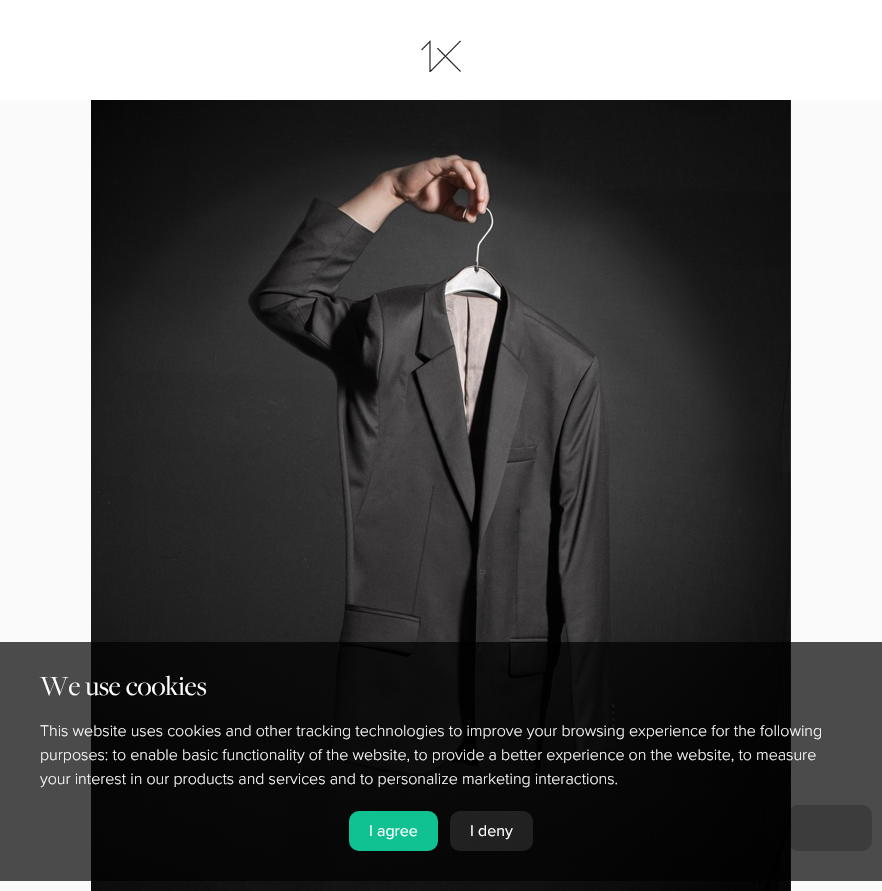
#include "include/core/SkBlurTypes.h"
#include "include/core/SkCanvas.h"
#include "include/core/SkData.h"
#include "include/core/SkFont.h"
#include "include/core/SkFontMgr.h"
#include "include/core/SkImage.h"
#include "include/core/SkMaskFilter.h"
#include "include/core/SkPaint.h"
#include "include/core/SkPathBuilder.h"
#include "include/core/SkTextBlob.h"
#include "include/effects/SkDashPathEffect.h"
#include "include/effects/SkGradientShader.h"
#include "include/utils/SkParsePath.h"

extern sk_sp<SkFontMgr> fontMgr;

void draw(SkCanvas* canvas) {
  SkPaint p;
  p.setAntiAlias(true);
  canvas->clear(SK_ColorWHITE);
  canvas->drawImageRect(SkImages::DeferredFromEncodedData(SkData::MakeFromFileName("images/1.png")), SkRect::MakeLTRB(421, 40, 461, 72), SkSamplingOptions());
  p.setColor(SkColorSetRGB(250, 250, 250));
  canvas->drawRect(SkRect::MakeLTRB(0, 100, 882, 891), p);
  canvas->drawImageRect(SkImages::DeferredFromEncodedData(SkData::MakeFromFileName("images/2.png")), SkRect::MakeLTRB(91, 100, 791, 891), SkSamplingOptions());
  p.setColor(SkColorSetARGB(51, 0, 0, 0));
  canvas->drawRoundRect(SkRect::MakeLTRB(788, 805, 872, 851), 10, 10, p);
  p.setColor(SkColorSetARGB(179, 0, 0, 0));
  canvas->drawRect(SkRect::MakeLTRB(0, 642, 882, 881), p);
  p.setColor(SkColorSetRGB(16, 193, 145));
  canvas->drawRoundRect(SkRect::MakeLTRB(349, 811, 438, 851), 10, 10, p);
  p.setColor(SkColorSetARGB(26, 255, 255, 255));
  canvas->drawRoundRect(SkRect::MakeLTRB(450, 811, 533, 851), 10, 10, p);
  SkFont font1(fontMgr->matchFamilyStyle("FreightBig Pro", SkFontStyle::Normal()), 28.75f);
  font1.setSubpixel(true);
  p.setColor(SK_ColorWHITE);
  canvas->drawString("We use cookies", 40, 695, font1, p);
  SkFont font2(fontMgr->matchFamilyStyle("Proxima Nova", SkFontStyle(300, SkFontStyle::kNormal_Width, SkFontStyle::kUpright_Slant)), 16);
  font2.setSubpixel(true);
  canvas->drawString("This website uses cookies and other tracking technologies to improve your browsing experience for the following", 40, 736, font2, p);
  canvas->drawString("purposes: to enable basic functionality of the website, to provide a better experience on the website, to measure", 40, 760, font2, p);
  canvas->drawString("your interest in our products and services and to personalize marketing interactions.", 40, 784, font2, p);
  SkFont font3(fontMgr->matchFamilyStyle("Proxima Nova", SkFontStyle::Normal()), 16);
  font3.setSubpixel(true);
  canvas->drawString("I agree", 369, 836, font3, p);
  canvas->drawString("I deny", 470, 836, font3, p);
}
